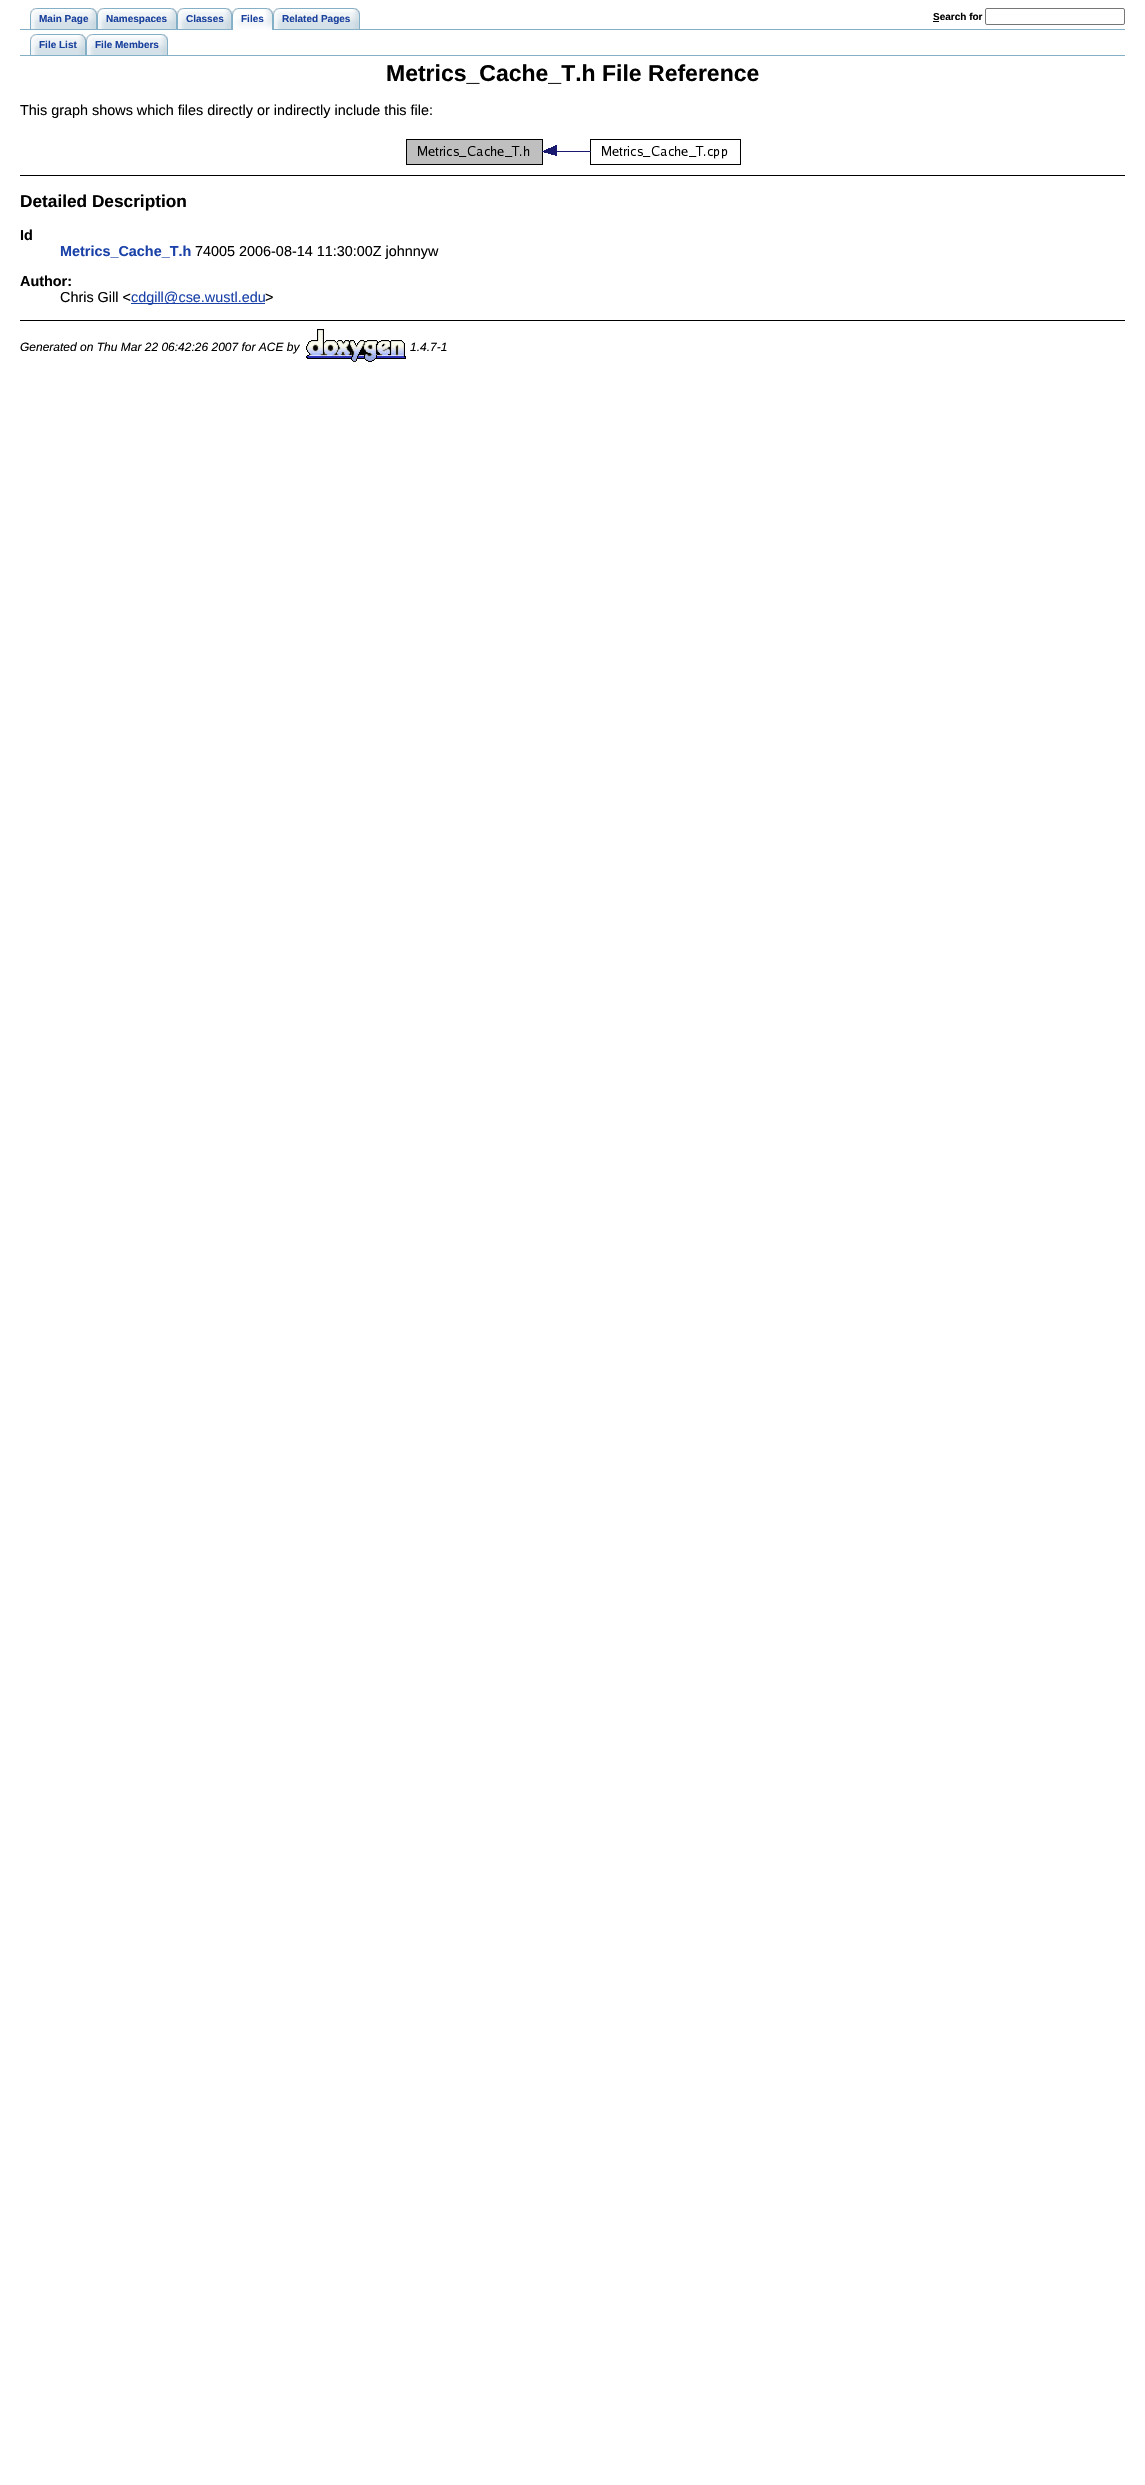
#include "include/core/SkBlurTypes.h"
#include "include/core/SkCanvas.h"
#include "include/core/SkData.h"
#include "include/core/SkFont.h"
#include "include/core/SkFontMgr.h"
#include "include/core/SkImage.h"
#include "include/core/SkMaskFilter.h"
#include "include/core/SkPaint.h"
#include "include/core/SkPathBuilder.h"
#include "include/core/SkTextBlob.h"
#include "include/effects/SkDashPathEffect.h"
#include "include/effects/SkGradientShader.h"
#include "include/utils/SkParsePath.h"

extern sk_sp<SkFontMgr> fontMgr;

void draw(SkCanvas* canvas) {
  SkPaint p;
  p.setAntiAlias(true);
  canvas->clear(SK_ColorWHITE);
  p.setColor(SkColorSetRGB(132, 176, 199));
  canvas->drawRect(SkRect::MakeLTRB(20, 29, 1125, 30), p);
  canvas->drawImageRect(SkImages::DeferredFromEncodedData(SkData::MakeFromFileName("images/1.png")), SkRect::MakeLTRB(39, 8, 97, 29), SkSamplingOptions());
  canvas->drawImageRect(SkImages::DeferredFromEncodedData(SkData::MakeFromFileName("images/2.png")), SkRect::MakeLTRB(30, 8, 39, 29), SkSamplingOptions());
  canvas->drawImageRect(SkImages::DeferredFromEncodedData(SkData::MakeFromFileName("images/3.png")), SkRect::MakeLTRB(106, 8, 177, 29), SkSamplingOptions());
  canvas->drawImageRect(SkImages::DeferredFromEncodedData(SkData::MakeFromFileName("images/2.png")), SkRect::MakeLTRB(97, 8, 106, 29), SkSamplingOptions());
  canvas->drawImageRect(SkImages::DeferredFromEncodedData(SkData::MakeFromFileName("images/4.png")), SkRect::MakeLTRB(186, 8, 232, 29), SkSamplingOptions());
  canvas->drawImageRect(SkImages::DeferredFromEncodedData(SkData::MakeFromFileName("images/2.png")), SkRect::MakeLTRB(177, 8, 186, 29), SkSamplingOptions());
  canvas->drawImageRect(SkImages::DeferredFromEncodedData(SkData::MakeFromFileName("images/5.png")), SkRect::MakeLTRB(239, 8, 273, 30), SkSamplingOptions());
  canvas->drawImageRect(SkImages::DeferredFromEncodedData(SkData::MakeFromFileName("images/6.png")), SkRect::MakeLTRB(232, 8, 239, 30), SkSamplingOptions());
  canvas->drawImageRect(SkImages::DeferredFromEncodedData(SkData::MakeFromFileName("images/7.png")), SkRect::MakeLTRB(282, 8, 360, 29), SkSamplingOptions());
  canvas->drawImageRect(SkImages::DeferredFromEncodedData(SkData::MakeFromFileName("images/2.png")), SkRect::MakeLTRB(273, 8, 282, 29), SkSamplingOptions());
  p.setColor(SK_ColorBLACK);
  canvas->drawRect(SkRect::MakeLTRB(933, 21, 939, 22), p);
  p.setStyle(SkPaint::kStroke_Style);
  p.setStrokeWidth(1);
  p.setColor(SkColorSetRGB(118, 118, 118));
  canvas->drawRoundRect(SkRect::MakeLTRB(985.5f, 8.5f, 1124.5f, 24.5f), 1.5f, 1.5f, p);
  p.setStyle(SkPaint::kFill_Style);
  p.setColor(SkColorSetRGB(132, 176, 199));
  canvas->drawRect(SkRect::MakeLTRB(20, 55, 1125, 56), p);
  canvas->drawImageRect(SkImages::DeferredFromEncodedData(SkData::MakeFromFileName("images/8.png")), SkRect::MakeLTRB(39, 34, 86, 55), SkSamplingOptions());
  canvas->drawImageRect(SkImages::DeferredFromEncodedData(SkData::MakeFromFileName("images/2.png")), SkRect::MakeLTRB(30, 34, 39, 55), SkSamplingOptions());
  canvas->drawImageRect(SkImages::DeferredFromEncodedData(SkData::MakeFromFileName("images/9.png")), SkRect::MakeLTRB(95, 34, 168, 55), SkSamplingOptions());
  canvas->drawImageRect(SkImages::DeferredFromEncodedData(SkData::MakeFromFileName("images/2.png")), SkRect::MakeLTRB(86, 34, 95, 55), SkSamplingOptions());
  canvas->drawImageRect(SkImages::DeferredFromEncodedData(SkData::MakeFromFileName("images/10.png")), SkRect::MakeLTRB(406, 139, 741, 165), SkSamplingOptions());
  p.setColor(SK_ColorBLACK);
  canvas->drawRect(SkRect::MakeLTRB(20, 175, 1125, 176), p);
  p.setColor(SkColorSetRGB(26, 65, 168));
  canvas->drawRect(SkRect::MakeLTRB(131, 303, 265, 304), p);
  p.setColor(SK_ColorBLACK);
  canvas->drawRect(SkRect::MakeLTRB(20, 320, 1125, 321), p);
  canvas->drawImageRect(SkImages::DeferredFromEncodedData(SkData::MakeFromFileName("images/11.png")), SkRect::MakeLTRB(306, 329, 406, 362), SkSamplingOptions());
  SkFont font1(fontMgr->matchFamilyStyle("Liberation Sans", SkFontStyle::Bold()), 10);
  font1.setSubpixel(true);
  p.setColor(SkColorSetRGB(26, 65, 157));
  canvas->drawString("Main Page", 39, 22, font1, p);
  canvas->drawString("Namespaces", 106, 22, font1, p);
  canvas->drawString("Classes", 186, 22, font1, p);
  canvas->drawString("Files", 241, 22, font1, p);
  canvas->drawString("Related Pages", 282, 22, font1, p);
  p.setColor(SK_ColorBLACK);
  canvas->drawString("Search for", 933, 20, font1, p);
  p.setColor(SkColorSetRGB(26, 65, 157));
  canvas->drawString("File List", 39, 48, font1, p);
  canvas->drawString("File Members", 95, 48, font1, p);
  SkFont font2(fontMgr->matchFamilyStyle("Liberation Sans", SkFontStyle::Bold()), 23);
  font2.setSubpixel(true);
  p.setColor(SK_ColorBLACK);
  canvas->drawString("Metrics_Cache_T.h File Reference", 386, 81, font2, p);
  SkFont font3(fontMgr->matchFamilyStyle("Liberation Sans", SkFontStyle::Normal()), 14.4f);
  font3.setSubpixel(true);
  canvas->drawString("This graph shows which files directly or indirectly include this file:", 20, 115, font3, p);
  SkFont font4(fontMgr->matchFamilyStyle("Liberation Sans", SkFontStyle::Bold()), 17.25f);
  font4.setSubpixel(true);
  canvas->drawString("Detailed Description", 20, 207, font4, p);
  SkFont font5(fontMgr->matchFamilyStyle("Liberation Sans", SkFontStyle::Bold()), 14.4f);
  font5.setSubpixel(true);
  canvas->drawString("Id", 20, 240, font5, p);
  p.setColor(SkColorSetRGB(26, 65, 168));
  canvas->drawString("Metrics_Cache_T.h", 60, 256, font5, p);
  p.setColor(SK_ColorBLACK);
  canvas->drawString("74005 2006-08-14 11:30:00Z johnnyw", 195, 256, font3, p);
  canvas->drawString("Author:", 20, 286, font5, p);
  canvas->drawString("Chris Gill <", 60, 302, font3, p);
  p.setColor(SkColorSetRGB(26, 65, 168));
  canvas->drawString("cdgill@cse.wustl.edu", 131, 302, font3, p);
  p.setColor(SK_ColorBLACK);
  canvas->drawString(">", 265, 302, font3, p);
  SkFont font6(fontMgr->matchFamilyStyle("Liberation Sans", SkFontStyle::Italic()), 12);
  font6.setSubpixel(true);
  canvas->drawString("Generated on Thu Mar 22 06:42:26 2007 for ACE by", 20, 351, font6, p);
  canvas->drawString("1.4.7-1", 410, 351, font6, p);
}
